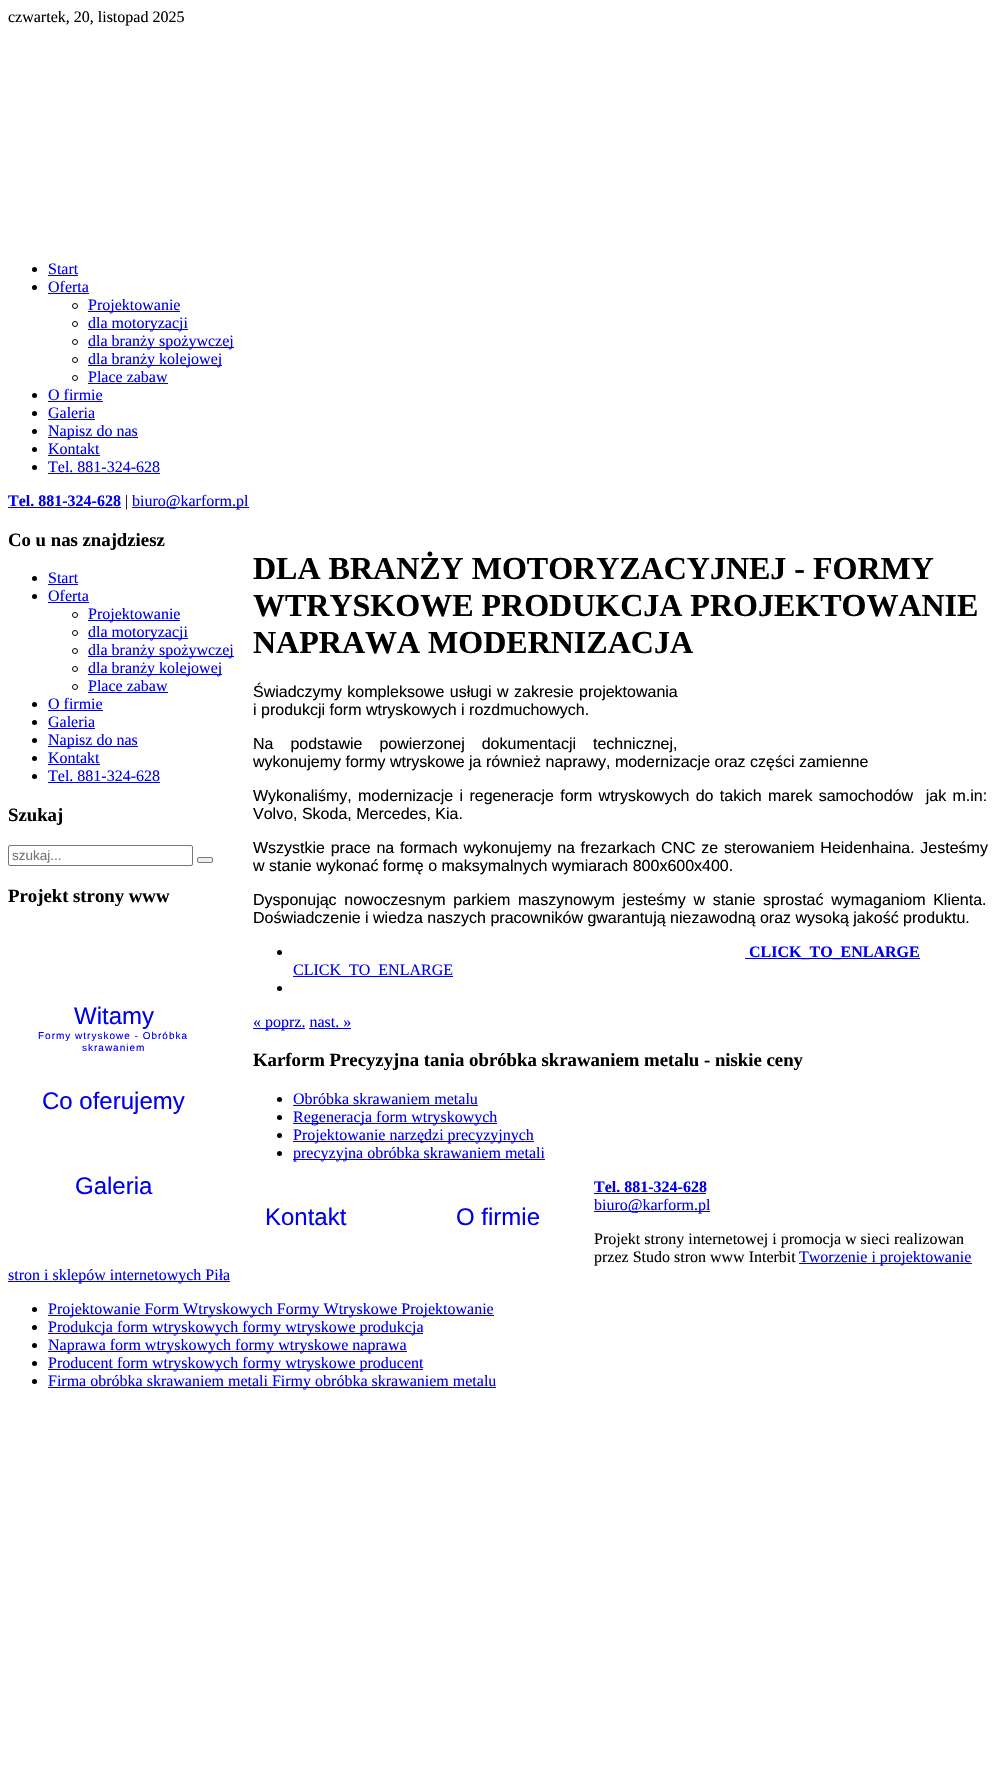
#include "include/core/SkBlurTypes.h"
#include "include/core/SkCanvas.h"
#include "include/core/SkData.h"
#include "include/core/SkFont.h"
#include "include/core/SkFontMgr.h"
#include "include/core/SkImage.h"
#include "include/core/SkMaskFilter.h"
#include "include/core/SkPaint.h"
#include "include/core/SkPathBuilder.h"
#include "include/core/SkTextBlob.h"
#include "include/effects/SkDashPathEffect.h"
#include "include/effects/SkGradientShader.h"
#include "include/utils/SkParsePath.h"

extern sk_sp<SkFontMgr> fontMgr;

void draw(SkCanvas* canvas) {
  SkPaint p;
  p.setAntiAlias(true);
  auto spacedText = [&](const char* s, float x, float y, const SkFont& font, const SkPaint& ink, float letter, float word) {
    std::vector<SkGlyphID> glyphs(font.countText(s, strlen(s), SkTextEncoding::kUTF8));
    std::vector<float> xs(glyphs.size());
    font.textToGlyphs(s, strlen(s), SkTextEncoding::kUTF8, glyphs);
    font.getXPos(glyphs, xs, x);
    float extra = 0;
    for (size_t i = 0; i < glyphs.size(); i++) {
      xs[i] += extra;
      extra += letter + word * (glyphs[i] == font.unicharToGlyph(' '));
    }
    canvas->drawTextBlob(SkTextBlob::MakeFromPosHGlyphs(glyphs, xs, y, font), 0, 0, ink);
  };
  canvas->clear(SK_ColorWHITE);
  p.setColor(SK_ColorBLACK);
  canvas->drawCircle(34.5f, 269.5f, 2.5f, p);
  p.setColor(SkColorSetRGB(0, 0, 238));
  canvas->drawRect(SkRect::MakeLTRB(48, 275, 78, 276), p);
  p.setColor(SK_ColorBLACK);
  canvas->drawCircle(34.5f, 287.5f, 2.5f, p);
  p.setColor(SkColorSetRGB(0, 0, 238));
  canvas->drawRect(SkRect::MakeLTRB(48, 293, 89, 294), p);
  p.setStyle(SkPaint::kStroke_Style);
  p.setStrokeWidth(1);
  p.setColor(SK_ColorBLACK);
  canvas->drawCircle(75, 306, 2.5f, p);
  p.setStyle(SkPaint::kFill_Style);
  p.setColor(SkColorSetRGB(0, 0, 238));
  canvas->drawRect(SkRect::MakeLTRB(88, 311, 180, 312), p);
  p.setStyle(SkPaint::kStroke_Style);
  p.setColor(SK_ColorBLACK);
  canvas->drawCircle(75, 324, 2.5f, p);
  p.setStyle(SkPaint::kFill_Style);
  p.setColor(SkColorSetRGB(0, 0, 238));
  canvas->drawRect(SkRect::MakeLTRB(88, 329, 188, 330), p);
  p.setStyle(SkPaint::kStroke_Style);
  p.setColor(SK_ColorBLACK);
  canvas->drawCircle(75, 342, 2.5f, p);
  p.setStyle(SkPaint::kFill_Style);
  p.setColor(SkColorSetRGB(0, 0, 238));
  canvas->drawRect(SkRect::MakeLTRB(88, 347, 234, 348), p);
  p.setStyle(SkPaint::kStroke_Style);
  p.setColor(SK_ColorBLACK);
  canvas->drawCircle(75, 360, 2.5f, p);
  p.setStyle(SkPaint::kFill_Style);
  p.setColor(SkColorSetRGB(0, 0, 238));
  canvas->drawRect(SkRect::MakeLTRB(88, 365, 222, 366), p);
  p.setStyle(SkPaint::kStroke_Style);
  p.setColor(SK_ColorBLACK);
  canvas->drawCircle(75, 378, 2.5f, p);
  p.setStyle(SkPaint::kFill_Style);
  p.setColor(SkColorSetRGB(0, 0, 238));
  canvas->drawRect(SkRect::MakeLTRB(88, 383, 168, 384), p);
  p.setColor(SK_ColorBLACK);
  canvas->drawCircle(34.5f, 395.5f, 2.5f, p);
  p.setColor(SkColorSetRGB(0, 0, 238));
  canvas->drawRect(SkRect::MakeLTRB(48, 401, 103, 402), p);
  p.setColor(SK_ColorBLACK);
  canvas->drawCircle(34.5f, 413.5f, 2.5f, p);
  p.setColor(SkColorSetRGB(0, 0, 238));
  canvas->drawRect(SkRect::MakeLTRB(48, 419, 95, 420), p);
  p.setColor(SK_ColorBLACK);
  canvas->drawCircle(34.5f, 431.5f, 2.5f, p);
  p.setColor(SkColorSetRGB(0, 0, 238));
  canvas->drawRect(SkRect::MakeLTRB(48, 437, 138, 438), p);
  p.setColor(SK_ColorBLACK);
  canvas->drawCircle(34.5f, 449.5f, 2.5f, p);
  p.setColor(SkColorSetRGB(0, 0, 238));
  canvas->drawRect(SkRect::MakeLTRB(48, 455, 100, 456), p);
  p.setColor(SK_ColorBLACK);
  canvas->drawCircle(34.5f, 467.5f, 2.5f, p);
  p.setColor(SkColorSetRGB(0, 0, 238));
  canvas->drawRect(SkRect::MakeLTRB(48, 473, 160, 474), p);
  canvas->drawRect(SkRect::MakeLTRB(8, 507, 121, 508), p);
  canvas->drawRect(SkRect::MakeLTRB(132, 507, 249, 508), p);
  p.setColor(SK_ColorBLACK);
  canvas->drawCircle(34.5f, 578.5f, 2.5f, p);
  p.setColor(SkColorSetRGB(0, 0, 238));
  canvas->drawRect(SkRect::MakeLTRB(48, 584, 78, 585), p);
  p.setColor(SK_ColorBLACK);
  canvas->drawCircle(34.5f, 596.5f, 2.5f, p);
  p.setColor(SkColorSetRGB(0, 0, 238));
  canvas->drawRect(SkRect::MakeLTRB(48, 602, 89, 603), p);
  p.setStyle(SkPaint::kStroke_Style);
  p.setColor(SK_ColorBLACK);
  canvas->drawCircle(75, 615, 2.5f, p);
  p.setStyle(SkPaint::kFill_Style);
  p.setColor(SkColorSetRGB(0, 0, 238));
  canvas->drawRect(SkRect::MakeLTRB(88, 620, 180, 621), p);
  p.setStyle(SkPaint::kStroke_Style);
  p.setColor(SK_ColorBLACK);
  canvas->drawCircle(75, 633, 2.5f, p);
  p.setStyle(SkPaint::kFill_Style);
  p.setColor(SkColorSetRGB(0, 0, 238));
  canvas->drawRect(SkRect::MakeLTRB(88, 638, 188, 639), p);
  p.setStyle(SkPaint::kStroke_Style);
  p.setColor(SK_ColorBLACK);
  canvas->drawCircle(75, 651, 2.5f, p);
  p.setStyle(SkPaint::kFill_Style);
  p.setColor(SkColorSetRGB(0, 0, 238));
  canvas->drawRect(SkRect::MakeLTRB(88, 656, 234, 657), p);
  p.setStyle(SkPaint::kStroke_Style);
  p.setColor(SK_ColorBLACK);
  canvas->drawCircle(75, 669, 2.5f, p);
  p.setStyle(SkPaint::kFill_Style);
  p.setColor(SkColorSetRGB(0, 0, 238));
  canvas->drawRect(SkRect::MakeLTRB(88, 674, 222, 675), p);
  p.setStyle(SkPaint::kStroke_Style);
  p.setColor(SK_ColorBLACK);
  canvas->drawCircle(75, 687, 2.5f, p);
  p.setStyle(SkPaint::kFill_Style);
  p.setColor(SkColorSetRGB(0, 0, 238));
  canvas->drawRect(SkRect::MakeLTRB(88, 692, 168, 693), p);
  p.setColor(SK_ColorBLACK);
  canvas->drawCircle(34.5f, 704.5f, 2.5f, p);
  p.setColor(SkColorSetRGB(0, 0, 238));
  canvas->drawRect(SkRect::MakeLTRB(48, 710, 103, 711), p);
  p.setColor(SK_ColorBLACK);
  canvas->drawCircle(34.5f, 722.5f, 2.5f, p);
  p.setColor(SkColorSetRGB(0, 0, 238));
  canvas->drawRect(SkRect::MakeLTRB(48, 728, 95, 729), p);
  p.setColor(SK_ColorBLACK);
  canvas->drawCircle(34.5f, 740.5f, 2.5f, p);
  p.setColor(SkColorSetRGB(0, 0, 238));
  canvas->drawRect(SkRect::MakeLTRB(48, 746, 138, 747), p);
  p.setColor(SK_ColorBLACK);
  canvas->drawCircle(34.5f, 758.5f, 2.5f, p);
  p.setColor(SkColorSetRGB(0, 0, 238));
  canvas->drawRect(SkRect::MakeLTRB(48, 764, 100, 765), p);
  p.setColor(SK_ColorBLACK);
  canvas->drawCircle(34.5f, 776.5f, 2.5f, p);
  p.setColor(SkColorSetRGB(0, 0, 238));
  canvas->drawRect(SkRect::MakeLTRB(48, 782, 160, 783), p);
  p.setStyle(SkPaint::kStroke_Style);
  p.setColor(SkColorSetRGB(118, 118, 118));
  canvas->drawRoundRect(SkRect::MakeLTRB(8.5f, 845.5f, 192.5f, 865.5f), 1.5f, 1.5f, p);
  p.setStyle(SkPaint::kFill_Style);
  p.setColor(SkColorSetRGB(239, 239, 239));
  canvas->drawRoundRect(SkRect::MakeLTRB(197.5f, 857.5f, 212.5f, 862.5f), 1.5f, 1.5f, p);
  p.setStyle(SkPaint::kStroke_Style);
  p.setColor(SkColorSetRGB(118, 118, 118));
  canvas->drawRoundRect(SkRect::MakeLTRB(197.5f, 857.5f, 212.5f, 862.5f), 1.5f, 1.5f, p);
  p.setStyle(SkPaint::kFill_Style);
  p.setColor(SK_ColorBLACK);
  canvas->drawCircle(279.5f, 952.5f, 2.5f, p);
  p.setColor(SkColorSetRGB(0, 0, 238));
  canvas->drawRect(SkRect::MakeLTRB(745, 958, 920, 959), p);
  canvas->drawRect(SkRect::MakeLTRB(293, 976, 453, 977), p);
  p.setColor(SK_ColorBLACK);
  canvas->drawCircle(279.5f, 988.5f, 2.5f, p);
  p.setColor(SkColorSetRGB(0, 0, 238));
  canvas->drawRect(SkRect::MakeLTRB(253, 1028, 305, 1029), p);
  canvas->drawRect(SkRect::MakeLTRB(309, 1028, 351, 1029), p);
  p.setColor(SK_ColorBLACK);
  canvas->drawCircle(279.5f, 1099.5f, 2.5f, p);
  p.setColor(SkColorSetRGB(0, 0, 238));
  canvas->drawRect(SkRect::MakeLTRB(293, 1105, 478, 1106), p);
  p.setColor(SK_ColorBLACK);
  canvas->drawCircle(279.5f, 1117.5f, 2.5f, p);
  p.setColor(SkColorSetRGB(0, 0, 238));
  canvas->drawRect(SkRect::MakeLTRB(293, 1123, 497, 1124), p);
  p.setColor(SK_ColorBLACK);
  canvas->drawCircle(279.5f, 1135.5f, 2.5f, p);
  p.setColor(SkColorSetRGB(0, 0, 238));
  canvas->drawRect(SkRect::MakeLTRB(293, 1141, 534, 1142), p);
  p.setColor(SK_ColorBLACK);
  canvas->drawCircle(279.5f, 1153.5f, 2.5f, p);
  p.setColor(SkColorSetRGB(0, 0, 238));
  canvas->drawRect(SkRect::MakeLTRB(293, 1159, 545, 1160), p);
  canvas->drawRect(SkRect::MakeLTRB(594, 1193, 706, 1194), p);
  canvas->drawRect(SkRect::MakeLTRB(594, 1211, 710, 1212), p);
  canvas->drawRect(SkRect::MakeLTRB(799, 1263, 972, 1264), p);
  canvas->drawRect(SkRect::MakeLTRB(8, 1281, 230, 1282), p);
  p.setColor(SK_ColorBLACK);
  canvas->drawCircle(34.5f, 1309.5f, 2.5f, p);
  p.setColor(SkColorSetRGB(0, 0, 238));
  canvas->drawRect(SkRect::MakeLTRB(48, 1315, 494, 1316), p);
  p.setColor(SK_ColorBLACK);
  canvas->drawCircle(34.5f, 1327.5f, 2.5f, p);
  p.setColor(SkColorSetRGB(0, 0, 238));
  canvas->drawRect(SkRect::MakeLTRB(48, 1333, 423, 1334), p);
  p.setColor(SK_ColorBLACK);
  canvas->drawCircle(34.5f, 1345.5f, 2.5f, p);
  p.setColor(SkColorSetRGB(0, 0, 238));
  canvas->drawRect(SkRect::MakeLTRB(48, 1351, 407, 1352), p);
  p.setColor(SK_ColorBLACK);
  canvas->drawCircle(34.5f, 1363.5f, 2.5f, p);
  p.setColor(SkColorSetRGB(0, 0, 238));
  canvas->drawRect(SkRect::MakeLTRB(48, 1369, 423, 1370), p);
  p.setColor(SK_ColorBLACK);
  canvas->drawCircle(34.5f, 1381.5f, 2.5f, p);
  p.setColor(SkColorSetRGB(0, 0, 238));
  canvas->drawRect(SkRect::MakeLTRB(48, 1387, 496, 1388), p);
  SkFont font1(fontMgr->matchFamilyStyle("Liberation Serif", SkFontStyle::Normal()), 16);
  font1.setSubpixel(true);
  p.setColor(SK_ColorBLACK);
  canvas->drawString("czwartek, 20, listopad 2025", 8, 22, font1, p);
  p.setColor(SkColorSetRGB(0, 0, 238));
  canvas->drawString("Start", 48, 274, font1, p);
  canvas->drawString("Oferta", 48, 292, font1, p);
  canvas->drawString("Projektowanie", 88, 310, font1, p);
  canvas->drawString("dla motoryzacji", 88, 328, font1, p);
  canvas->drawString("dla branży spożywczej", 88, 346, font1, p);
  canvas->drawString("dla branży kolejowej", 88, 364, font1, p);
  canvas->drawString("Place zabaw", 88, 382, font1, p);
  canvas->drawString("O firmie", 48, 400, font1, p);
  canvas->drawString("Galeria", 48, 418, font1, p);
  canvas->drawString("Napisz do nas", 48, 436, font1, p);
  canvas->drawString("Kontakt", 48, 454, font1, p);
  canvas->drawString("Tel. 881-324-628", 48, 472, font1, p);
  SkFont font2(fontMgr->matchFamilyStyle("Liberation Serif", SkFontStyle::Bold()), 16);
  font2.setSubpixel(true);
  canvas->drawString("Tel. 881-324-628", 8, 506, font2, p);
  p.setColor(SK_ColorBLACK);
  canvas->drawString("|", 125, 506, font1, p);
  p.setColor(SkColorSetRGB(0, 0, 238));
  canvas->drawString("biuro@karform.pl", 132, 506, font1, p);
  SkFont font3(fontMgr->matchFamilyStyle("Liberation Serif", SkFontStyle::Bold()), 18.75f);
  font3.setSubpixel(true);
  p.setColor(SK_ColorBLACK);
  canvas->drawString("Co u nas znajdziesz", 8, 546, font3, p);
  p.setColor(SkColorSetRGB(0, 0, 238));
  canvas->drawString("Start", 48, 583, font1, p);
  canvas->drawString("Oferta", 48, 601, font1, p);
  canvas->drawString("Projektowanie", 88, 619, font1, p);
  canvas->drawString("dla motoryzacji", 88, 637, font1, p);
  canvas->drawString("dla branży spożywczej", 88, 655, font1, p);
  canvas->drawString("dla branży kolejowej", 88, 673, font1, p);
  canvas->drawString("Place zabaw", 88, 691, font1, p);
  canvas->drawString("O firmie", 48, 709, font1, p);
  canvas->drawString("Galeria", 48, 727, font1, p);
  canvas->drawString("Napisz do nas", 48, 745, font1, p);
  canvas->drawString("Kontakt", 48, 763, font1, p);
  canvas->drawString("Tel. 881-324-628", 48, 781, font1, p);
  p.setColor(SK_ColorBLACK);
  canvas->drawString("Szukaj", 8, 821, font3, p);
  SkFont font4(fontMgr->matchFamilyStyle("Liberation Sans", SkFontStyle::Normal()), 13.5f);
  font4.setSubpixel(true);
  p.setColor(SkColorSetRGB(117, 117, 117));
  canvas->drawString("szukaj...", 12, 860, font4, p);
  p.setColor(SK_ColorBLACK);
  canvas->drawString("Projekt strony www", 8, 902, font3, p);
  SkFont font5(fontMgr->matchFamilyStyle("Liberation Serif", SkFontStyle::Bold()), 32);
  font5.setSubpixel(true);
  canvas->drawString("DLA BRANŻY MOTORYZACYJNEJ - FORMY", 253, 579, font5, p);
  canvas->drawString("WTRYSKOWE PRODUKCJA PROJEKTOWANIE", 253, 616, font5, p);
  canvas->drawString("NAPRAWA MODERNIZACJA", 253, 653, font5, p);
  SkFont font6(fontMgr->matchFamilyStyle("Liberation Sans", SkFontStyle::Normal()), 16);
  font6.setSubpixel(true);
  spacedText("Świadczymy kompleksowe usługi w zakresie projektowania", 253, 697, font6, p, 0, 1);
  canvas->drawString("i produkcji form wtryskowych i rozdmuchowych.", 253, 715, font6, p);
  spacedText("Na podstawie powierzonej dokumentacji technicznej,", 253, 749, font6, p, 0, 12.5f);
  canvas->drawString("wykonujemy formy wtryskowe ja również naprawy, modernizacje oraz części zamienne", 253, 767, font6, p);
  spacedText("Wykonaliśmy, modernizacje i regeneracje form wtryskowych do takich marek samochodów  jak m.in:", 253, 801, font6, p, 0, 1.9f);
  canvas->drawString("Volvo, Skoda, Mercedes, Kia.", 253, 819, font6, p);
  spacedText("Wszystkie prace na formach wykonujemy na frezarkach CNC ze sterowaniem Heidenhaina. Jesteśmy", 253, 853, font6, p, 0, 1.25f);
  canvas->drawString("w stanie wykonać formę o maksymalnych wymiarach 800x600x400.", 253, 871, font6, p);
  spacedText("Dysponując nowoczesnym parkiem maszynowym jesteśmy w stanie sprostać wymaganiom Klienta.", 253, 905, font6, p, 0, 3.25f);
  canvas->drawString("Doświadczenie i wiedza naszych pracowników gwarantują niezawodną oraz wysoką jakość produktu.", 253, 923, font6, p);
  p.setColor(SkColorSetRGB(0, 0, 238));
  canvas->drawString("CLICK_TO_ENLARGE", 749, 957, font2, p);
  canvas->drawString("CLICK_TO_ENLARGE", 293, 975, font1, p);
  canvas->drawString("« poprz. nast. »", 253, 1027, font1, p);
  p.setColor(SK_ColorBLACK);
  canvas->drawString("Karform Precyzyjna tania obróbka skrawaniem metalu - niskie ceny", 253, 1066, font3, p);
  p.setColor(SkColorSetRGB(0, 0, 238));
  canvas->drawString("Obróbka skrawaniem metalu", 293, 1104, font1, p);
  canvas->drawString("Regeneracja form wtryskowych", 293, 1122, font1, p);
  canvas->drawString("Projektowanie narzędzi precyzyjnych", 293, 1140, font1, p);
  canvas->drawString("precyzyjna obróbka skrawaniem metali", 293, 1158, font1, p);
  SkFont font7(fontMgr->matchFamilyStyle("Liberation Sans", SkFontStyle::Normal()), 24);
  font7.setSubpixel(true);
  canvas->drawString("Witamy", 74, 1024, font7, p);
  SkFont font8(fontMgr->matchFamilyStyle("Liberation Sans", SkFontStyle::Normal()), 10);
  font8.setSubpixel(true);
  spacedText("Formy wtryskowe - Obróbka", 38, 1039, font8, p, 1, 0);
  spacedText("skrawaniem", 82, 1051, font8, p, 1, 0);
  canvas->drawString("Co oferujemy", 42, 1109, font7, p);
  canvas->drawString("Galeria", 75, 1194, font7, p);
  canvas->drawString("Kontakt", 265, 1225, font7, p);
  canvas->drawString("O firmie", 456, 1225, font7, p);
  canvas->drawString("Tel. 881-324-628", 594, 1192, font2, p);
  canvas->drawString("biuro@karform.pl", 594, 1210, font1, p);
  p.setColor(SK_ColorBLACK);
  canvas->drawString("Projekt strony internetowej i promocja w sieci realizowan", 594, 1244, font1, p);
  canvas->drawString("przez Studo stron www Interbit", 594, 1262, font1, p);
  p.setColor(SkColorSetRGB(0, 0, 238));
  canvas->drawString("Tworzenie i projektowanie", 799, 1262, font1, p);
  canvas->drawString("stron i sklepów internetowych Piła", 8, 1280, font1, p);
  canvas->drawString("Projektowanie Form Wtryskowych Formy Wtryskowe Projektowanie", 48, 1314, font1, p);
  canvas->drawString("Produkcja form wtryskowych formy wtryskowe produkcja", 48, 1332, font1, p);
  canvas->drawString("Naprawa form wtryskowych formy wtryskowe naprawa", 48, 1350, font1, p);
  canvas->drawString("Producent form wtryskowych formy wtryskowe producent", 48, 1368, font1, p);
  canvas->drawString("Firma obróbka skrawaniem metali Firmy obróbka skrawaniem metalu", 48, 1386, font1, p);
}
